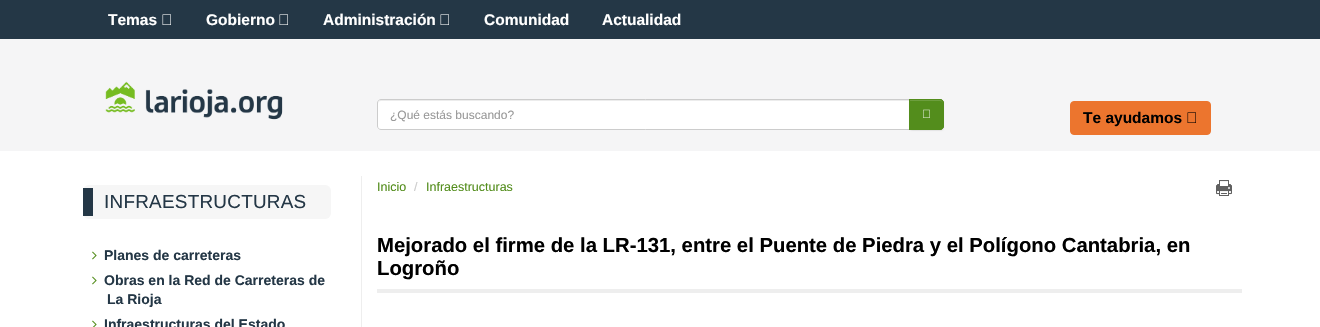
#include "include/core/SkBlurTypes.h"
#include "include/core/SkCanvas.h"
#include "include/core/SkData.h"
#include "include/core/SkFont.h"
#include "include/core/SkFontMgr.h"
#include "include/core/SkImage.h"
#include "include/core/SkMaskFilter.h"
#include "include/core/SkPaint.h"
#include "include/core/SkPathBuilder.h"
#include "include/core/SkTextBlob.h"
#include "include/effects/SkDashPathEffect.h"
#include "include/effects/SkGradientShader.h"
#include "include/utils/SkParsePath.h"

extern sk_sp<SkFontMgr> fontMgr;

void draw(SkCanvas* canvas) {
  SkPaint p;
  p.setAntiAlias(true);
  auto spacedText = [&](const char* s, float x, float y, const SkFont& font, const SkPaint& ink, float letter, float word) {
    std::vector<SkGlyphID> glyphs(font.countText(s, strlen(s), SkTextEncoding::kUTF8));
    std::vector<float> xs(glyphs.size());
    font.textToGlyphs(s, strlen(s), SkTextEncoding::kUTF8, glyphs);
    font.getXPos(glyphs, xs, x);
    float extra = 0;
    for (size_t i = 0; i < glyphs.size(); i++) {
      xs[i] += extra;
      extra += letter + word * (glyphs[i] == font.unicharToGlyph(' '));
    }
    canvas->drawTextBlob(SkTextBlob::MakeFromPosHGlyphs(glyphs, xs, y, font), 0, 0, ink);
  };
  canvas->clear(SK_ColorWHITE);
  p.setColor(SkColorSetRGB(245, 245, 246));
  canvas->drawRect(SkRect::MakeLTRB(0, 39, 1320, 151), p);
  p.setColor(SkColorSetRGB(36, 55, 70));
  canvas->drawRect(SkRect::MakeLTRB(0, 0, 1320, 39), p);
  canvas->drawImageRect(SkImages::DeferredFromEncodedData(SkData::MakeFromFileName("images/1.png")), SkRect::MakeLTRB(162, 14, 171, 25), SkSamplingOptions());
  canvas->drawImageRect(SkImages::DeferredFromEncodedData(SkData::MakeFromFileName("images/1.png")), SkRect::MakeLTRB(279, 14, 288, 25), SkSamplingOptions());
  canvas->drawImageRect(SkImages::DeferredFromEncodedData(SkData::MakeFromFileName("images/1.png")), SkRect::MakeLTRB(440, 14, 449, 25), SkSamplingOptions());
  canvas->drawImageRect(SkImages::DeferredFromEncodedData(SkData::MakeFromFileName("images/2.png")), SkRect::MakeLTRB(105, 81, 283, 120), SkSamplingOptions());
  p.setColor(SK_ColorWHITE);
  canvas->drawPath(SkPathBuilder().moveTo(381, 99).lineTo(910, 99).lineTo(910, 130).lineTo(381, 130).cubicTo(379, 130, 377, 128, 377, 126).lineTo(377, 103).cubicTo(377, 101, 379, 99, 381, 99).close().detach(), p);
  p.setColor(SkColorSetRGB(236, 236, 236));
  canvas->drawPath(SkPathBuilder().moveTo(381, 101).lineTo(909, 101).lineTo(909, 100).lineTo(381, 100).cubicTo(379, 100, 378, 102, 378, 104).cubicTo(378, 102, 379, 101, 381, 101).close().detach(), p);
  p.setStyle(SkPaint::kStroke_Style);
  p.setStrokeWidth(1);
  p.setColor(SkColorSetRGB(204, 204, 204));
  canvas->drawPath(SkPathBuilder().moveTo(381, 99.5f).lineTo(909.5f, 99.5f).lineTo(909.5f, 129.5f).lineTo(381, 129.5f).cubicTo(379, 129.5f, 377.5f, 128, 377.5f, 126).lineTo(377.5f, 103).cubicTo(377.5f, 101, 379, 99.5f, 381, 99.5f).close().detach(), p);
  p.setStyle(SkPaint::kFill_Style);
  p.setColor(SkColorSetARGB(18, 0, 0, 0));
  p.setMaskFilter(SkMaskFilter::MakeBlur(kNormal_SkBlurStyle, 0.5f));
  canvas->drawRoundRect(SkRect::MakeLTRB(909, 100, 944, 131), 4, 4, p);
  p.setMaskFilter(nullptr);
  p.setColor(SkColorSetRGB(83, 141, 28));
  canvas->drawPath(SkPathBuilder().moveTo(909, 99).lineTo(940, 99).cubicTo(942, 99, 944, 101, 944, 103).lineTo(944, 126).cubicTo(944, 128, 942, 130, 940, 130).lineTo(909, 130).close().detach(), p);
  p.setColor(SkColorSetRGB(109, 158, 62));
  canvas->drawPath(SkPathBuilder().moveTo(910, 101).lineTo(940, 101).cubicTo(942, 101, 943, 102, 943, 104).lineTo(943, 103).cubicTo(943, 101.5f, 941.5f, 100, 940, 100).lineTo(910, 100).close().detach(), p);
  p.setStyle(SkPaint::kStroke_Style);
  p.setColor(SkColorSetRGB(83, 141, 28));
  canvas->drawPath(SkPathBuilder().moveTo(909.5f, 99.5f).lineTo(940, 99.5f).cubicTo(942, 99.5f, 943.5f, 101, 943.5f, 103).lineTo(943.5f, 126).cubicTo(943.5f, 128, 942, 129.5f, 940, 129.5f).lineTo(909.5f, 129.5f).close().detach(), p);
  canvas->drawImageRect(SkImages::DeferredFromEncodedData(SkData::MakeFromFileName("images/3.png")), SkRect::MakeLTRB(923, 109, 930, 118), SkSamplingOptions());
  p.setStyle(SkPaint::kFill_Style);
  p.setColor(SkColorSetRGB(236, 117, 46));
  canvas->drawRoundRect(SkRect::MakeLTRB(1070.5f, 101.5f, 1210.5f, 134.5f), 3.5f, 3.5f, p);
  p.setStyle(SkPaint::kStroke_Style);
  canvas->drawRoundRect(SkRect::MakeLTRB(1070.5f, 101.5f, 1210.5f, 134.5f), 3.5f, 3.5f, p);
  canvas->drawImageRect(SkImages::DeferredFromEncodedData(SkData::MakeFromFileName("images/4.png")), SkRect::MakeLTRB(1187, 112, 1196, 123), SkSamplingOptions());
  p.setStyle(SkPaint::kFill_Style);
  p.setColor(SkColorSetRGB(238, 238, 238));
  canvas->drawRect(SkRect::MakeLTRB(361, 176, 362, 327), p);
  p.setColor(SkColorSetRGB(246, 246, 246));
  canvas->drawRoundRect(SkRect::MakeLTRB(83, 185, 331, 219), 6, 6, p);
  p.setColor(SkColorSetRGB(36, 55, 70));
  canvas->drawRect(SkRect::MakeLTRB(83, 188, 93, 216), p);
  canvas->drawImageRect(SkImages::DeferredFromEncodedData(SkData::MakeFromFileName("images/5.png")), SkRect::MakeLTRB(92, 251, 97, 260), SkSamplingOptions());
  canvas->drawImageRect(SkImages::DeferredFromEncodedData(SkData::MakeFromFileName("images/5.png")), SkRect::MakeLTRB(92, 276, 97, 285), SkSamplingOptions());
  canvas->drawImageRect(SkImages::DeferredFromEncodedData(SkData::MakeFromFileName("images/6.png")), SkRect::MakeLTRB(92, 320, 97, 327), SkSamplingOptions());
  canvas->drawImageRect(SkImages::DeferredFromEncodedData(SkData::MakeFromFileName("images/7.png")), SkRect::MakeLTRB(1216, 180, 1232, 196), SkSamplingOptions());
  p.setColor(SkColorSetRGB(238, 238, 238));
  canvas->drawRect(SkRect::MakeLTRB(377, 289, 1242, 293), p);
  SkFont font1(fontMgr->matchFamilyStyle("Liberation Sans", SkFontStyle::Bold()), 15.5f);
  font1.setSubpixel(true);
  p.setColor(SK_ColorWHITE);
  canvas->drawString("Temas", 108, 25, font1, p);
  canvas->drawString("Gobierno", 206, 25, font1, p);
  canvas->drawString("Administración", 323, 25, font1, p);
  canvas->drawString("Comunidad", 484, 25, font1, p);
  canvas->drawString("Actualidad", 602, 25, font1, p);
  SkFont font2(fontMgr->matchFamilyStyle("Liberation Sans", SkFontStyle::Normal()), 12);
  font2.setSubpixel(true);
  p.setColor(SkColorSetRGB(153, 153, 153));
  canvas->drawString("¿Qué estás buscando?", 390, 119, font2, p);
  p.setColor(SK_ColorBLACK);
  canvas->drawString("Te ayudamos", 1083, 123, font1, p);
  SkFont font3(fontMgr->matchFamilyStyle("Liberation Sans", SkFontStyle::Normal()), 18.9f);
  font3.setSubpixel(true);
  p.setColor(SkColorSetRGB(36, 55, 70));
  spacedText("INFRAESTRUCTURAS", 104, 208, font3, p, 0.25f, 0);
  SkFont font4(fontMgr->matchFamilyStyle("Liberation Sans", SkFontStyle::Bold()), 14);
  font4.setSubpixel(true);
  canvas->drawString("Planes de carreteras", 104, 260, font4, p);
  canvas->drawString("Obras en la Red de Carreteras de", 104, 285, font4, p);
  canvas->drawString("La Rioja", 107, 304, font4, p);
  canvas->drawString("Infraestructuras del Estado", 104, 329, font4, p);
  SkFont font5(fontMgr->matchFamilyStyle("Liberation Sans", SkFontStyle::Normal()), 12.5f);
  font5.setSubpixel(true);
  p.setColor(SkColorSetRGB(83, 141, 28));
  canvas->drawString("Inicio", 377, 191, font5, p);
  p.setColor(SkColorSetRGB(204, 204, 204));
  canvas->drawString("/", 414, 191, font5, p);
  p.setColor(SkColorSetRGB(83, 141, 28));
  canvas->drawString("Infraestructuras", 426, 191, font5, p);
  SkFont font6(fontMgr->matchFamilyStyle("Liberation Sans", SkFontStyle::Bold()), 20.3f);
  font6.setSubpixel(true);
  p.setColor(SK_ColorBLACK);
  canvas->drawString("Mejorado el firme de la LR-131, entre el Puente de Piedra y el Polígono Cantabria, en", 377, 252, font6, p);
  canvas->drawString("Logroño", 377, 275, font6, p);
}
